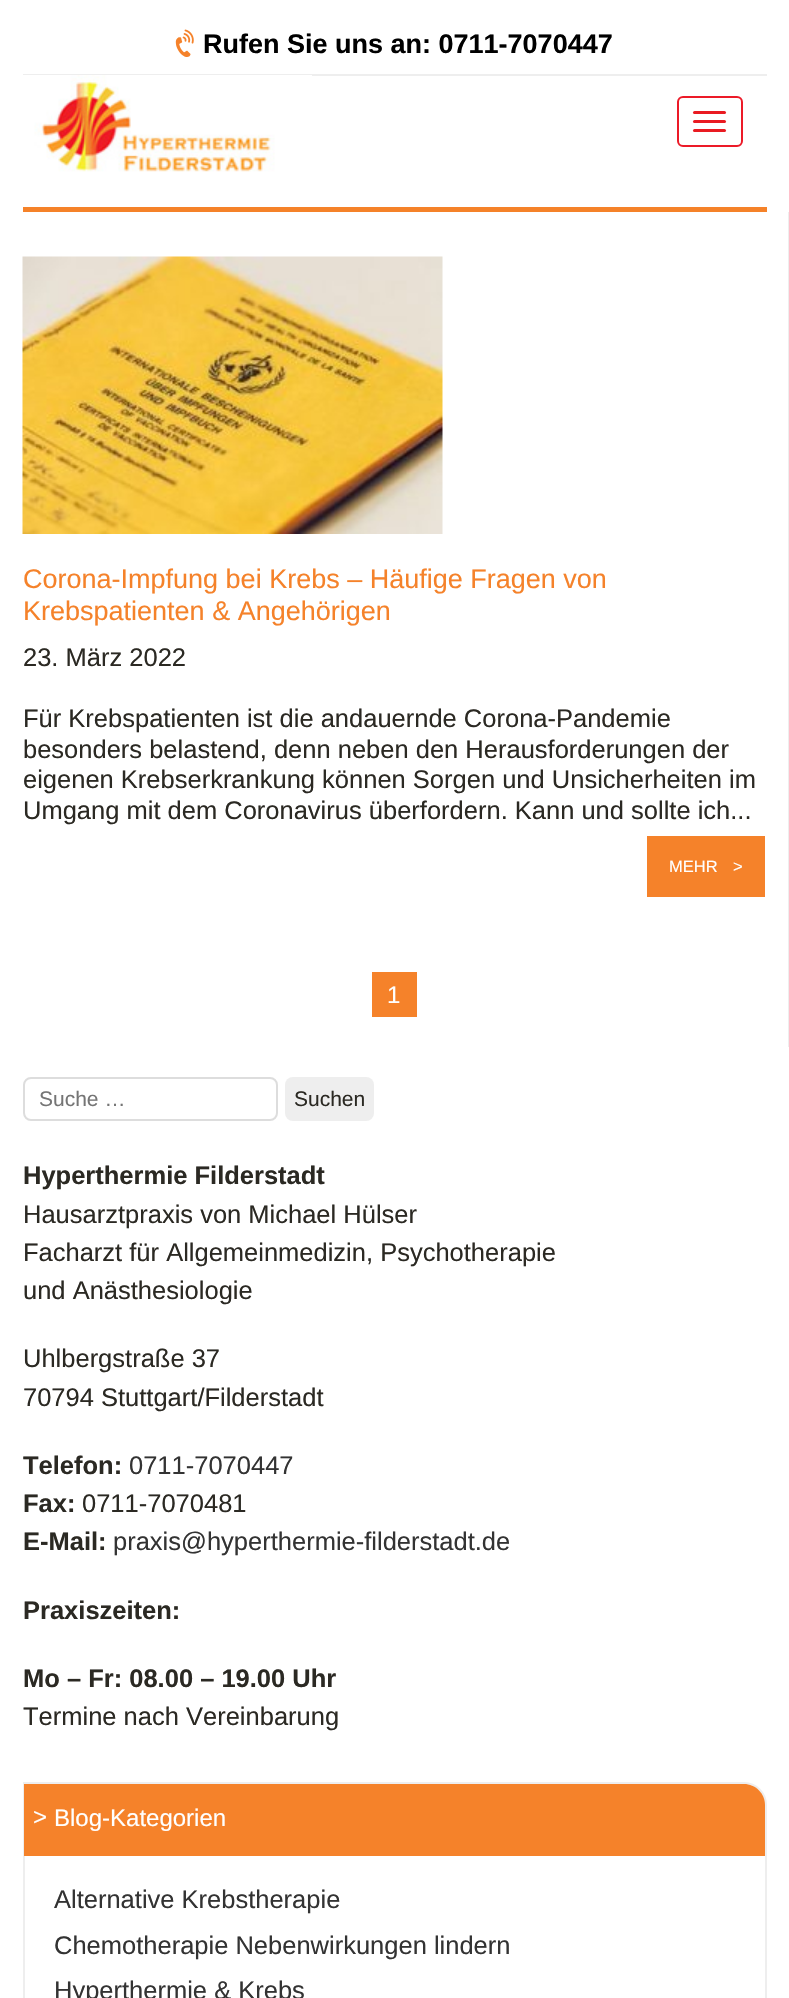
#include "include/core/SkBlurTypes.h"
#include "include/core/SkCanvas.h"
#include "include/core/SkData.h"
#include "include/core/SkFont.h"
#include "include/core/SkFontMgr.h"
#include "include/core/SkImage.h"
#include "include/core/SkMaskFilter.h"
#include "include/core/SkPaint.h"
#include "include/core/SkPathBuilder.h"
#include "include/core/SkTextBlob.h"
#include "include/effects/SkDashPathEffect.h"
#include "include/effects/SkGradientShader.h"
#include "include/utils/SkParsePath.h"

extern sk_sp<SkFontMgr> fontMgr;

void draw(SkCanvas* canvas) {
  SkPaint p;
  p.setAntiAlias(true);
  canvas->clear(SK_ColorWHITE);
  p.setColor(SkColorSetRGB(245, 130, 41));
  canvas->drawRect(SkRect::MakeLTRB(23, 207, 767, 212), p);
  p.setColor(SkColorSetRGB(238, 238, 238));
  canvas->drawRect(SkRect::MakeLTRB(23, 74, 767, 76), p);
  canvas->drawImageRect(SkImages::DeferredFromEncodedData(SkData::MakeFromFileName("images/1.png")), SkRect::MakeLTRB(175, 29, 194, 57), SkSamplingOptions());
  canvas->drawImageRect(SkImages::DeferredFromEncodedData(SkData::MakeFromFileName("images/2.png")), SkRect::MakeLTRB(23, 75, 312, 172), SkSamplingOptions());
  p.setStyle(SkPaint::kStroke_Style);
  p.setStrokeWidth(2);
  p.setColor(SkColorSetRGB(236, 26, 40));
  canvas->drawRoundRect(SkRect::MakeLTRB(678, 97, 742, 146), 5, 5, p);
  p.setStyle(SkPaint::kFill_Style);
  p.setColor(SkColorSetRGB(233, 27, 34));
  canvas->drawRoundRect(SkRect::MakeLTRB(693, 111, 726, 114), 1.5f, 1.5f, p);
  canvas->drawRoundRect(SkRect::MakeLTRB(693, 120, 726, 123), 1.5f, 1.5f, p);
  canvas->drawRoundRect(SkRect::MakeLTRB(693, 129, 726, 132), 1.5f, 1.5f, p);
  p.setColor(SkColorSetRGB(238, 238, 238));
  canvas->drawRect(SkRect::MakeLTRB(788, 212, 789, 1047), p);
  canvas->drawImageRect(SkImages::DeferredFromEncodedData(SkData::MakeFromFileName("images/3.png")), SkRect::MakeLTRB(22, 256, 443, 534), SkSamplingOptions());
  p.setColor(SkColorSetRGB(245, 130, 42));
  canvas->drawRect(SkRect::MakeLTRB(647, 836, 765, 897), p);
  canvas->drawRect(SkRect::MakeLTRB(372, 972, 417, 1017), p);
  p.setStyle(SkPaint::kStroke_Style);
  p.setColor(SkColorSetRGB(221, 221, 221));
  canvas->drawRoundRect(SkRect::MakeLTRB(24, 1078, 277, 1120), 7, 7, p);
  p.setStyle(SkPaint::kFill_Style);
  p.setColor(SkColorSetRGB(238, 238, 238));
  canvas->drawRoundRect(SkRect::MakeLTRB(285, 1077, 374, 1121), 8, 8, p);
  p.setStyle(SkPaint::kStroke_Style);
  canvas->drawPath(SkPathBuilder().moveTo(24, 1783).lineTo(744, 1783).cubicTo(756, 1783, 766, 1793, 766, 1805).lineTo(766, 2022).lineTo(24, 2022).close().detach(), p);
  p.setStyle(SkPaint::kFill_Style);
  p.setColor(SkColorSetRGB(245, 130, 42));
  canvas->drawPath(SkPathBuilder().moveTo(24, 1784).lineTo(744, 1784).cubicTo(755.5f, 1784, 765, 1793.5f, 765, 1805).lineTo(765, 1856).lineTo(24, 1856).close().detach(), p);
  SkFont font1(fontMgr->matchFamilyStyle("Liberation Sans", SkFontStyle::Bold()), 27);
  font1.setSubpixel(true);
  p.setColor(SK_ColorBLACK);
  canvas->drawString("Rufen Sie uns an: 0711-7070447", 203, 53, font1, p);
  SkFont font2(fontMgr->matchFamilyStyle("Liberation Sans", SkFontStyle::Normal()), 27);
  font2.setSubpixel(true);
  p.setColor(SkColorSetRGB(245, 130, 42));
  canvas->drawString("Corona-Impfung bei Krebs – Häufige Fragen von", 23, 588, font2, p);
  canvas->drawString("Krebspatienten & Angehörigen", 23, 620, font2, p);
  SkFont font3(fontMgr->matchFamilyStyle("Liberation Sans", SkFontStyle::Normal()), 25.5f);
  font3.setSubpixel(true);
  p.setColor(SkColorSetRGB(43, 41, 35));
  canvas->drawString("23. März 2022", 23, 666, font3, p);
  canvas->drawString("Für Krebspatienten ist die andauernde Corona-Pandemie", 23, 727, font3, p);
  canvas->drawString("besonders belastend, denn neben den Herausforderungen der", 23, 758, font3, p);
  canvas->drawString("eigenen Krebserkrankung können Sorgen und Unsicherheiten im", 23, 788, font3, p);
  canvas->drawString("Umgang mit dem Coronavirus überfordern. Kann und sollte ich...", 23, 819, font3, p);
  SkFont font4(fontMgr->matchFamilyStyle("Liberation Sans", SkFontStyle::Normal()), 16.5f);
  font4.setSubpixel(true);
  p.setColor(SK_ColorWHITE);
  canvas->drawString("MEHR", 669, 872, font4, p);
  canvas->drawString(">", 733, 872, font4, p);
  SkFont font5(fontMgr->matchFamilyStyle("Liberation Sans", SkFontStyle::Normal()), 24);
  font5.setSubpixel(true);
  canvas->drawString("1", 387, 1003, font5, p);
  SkFont font6(fontMgr->matchFamilyStyle("Liberation Sans", SkFontStyle::Normal()), 21);
  font6.setSubpixel(true);
  p.setColor(SkColorSetRGB(117, 117, 117));
  canvas->drawString("Suche …", 39, 1106, font6, p);
  p.setColor(SkColorSetRGB(43, 41, 35));
  canvas->drawString("Suchen", 294, 1106, font6, p);
  SkFont font7(fontMgr->matchFamilyStyle("Liberation Sans", SkFontStyle::Bold()), 25.5f);
  font7.setSubpixel(true);
  canvas->drawString("Hyperthermie Filderstadt", 23, 1184, font7, p);
  canvas->drawString("Hausarztpraxis von Michael Hülser", 23, 1223, font3, p);
  canvas->drawString("Facharzt für Allgemeinmedizin, Psychotherapie", 23, 1261, font3, p);
  canvas->drawString("und Anästhesiologie", 23, 1299, font3, p);
  canvas->drawString("Uhlbergstraße 37", 23, 1367, font3, p);
  canvas->drawString("70794 Stuttgart/Filderstadt", 23, 1406, font3, p);
  canvas->drawString("Telefon:", 23, 1474, font7, p);
  p.setColor(SkColorSetRGB(51, 51, 51));
  canvas->drawString("0711-7070447", 129, 1474, font3, p);
  p.setColor(SkColorSetRGB(43, 41, 35));
  canvas->drawString("Fax:", 23, 1512, font7, p);
  canvas->drawString("0711-7070481", 82, 1512, font3, p);
  canvas->drawString("E-Mail:", 23, 1550, font7, p);
  p.setColor(SkColorSetRGB(51, 51, 51));
  canvas->drawString("praxis@hyperthermie-filderstadt.de", 113, 1550, font3, p);
  p.setColor(SkColorSetRGB(43, 41, 35));
  canvas->drawString("Praxiszeiten:", 23, 1619, font7, p);
  canvas->drawString("Mo – Fr: 08.00 – 19.00 Uhr", 23, 1687, font7, p);
  canvas->drawString("Termine nach Vereinbarung", 23, 1725, font3, p);
  p.setColor(SK_ColorWHITE);
  canvas->drawString(">", 33, 1825, font5, p);
  canvas->drawString("Blog-Kategorien", 54, 1826, font5, p);
  p.setColor(SkColorSetRGB(51, 51, 51));
  canvas->drawString("Alternative Krebstherapie", 54, 1908, font3, p);
  canvas->drawString("Chemotherapie Nebenwirkungen lindern", 54, 1954, font3, p);
  canvas->drawString("Hyperthermie & Krebs", 54, 1999, font3, p);
}
